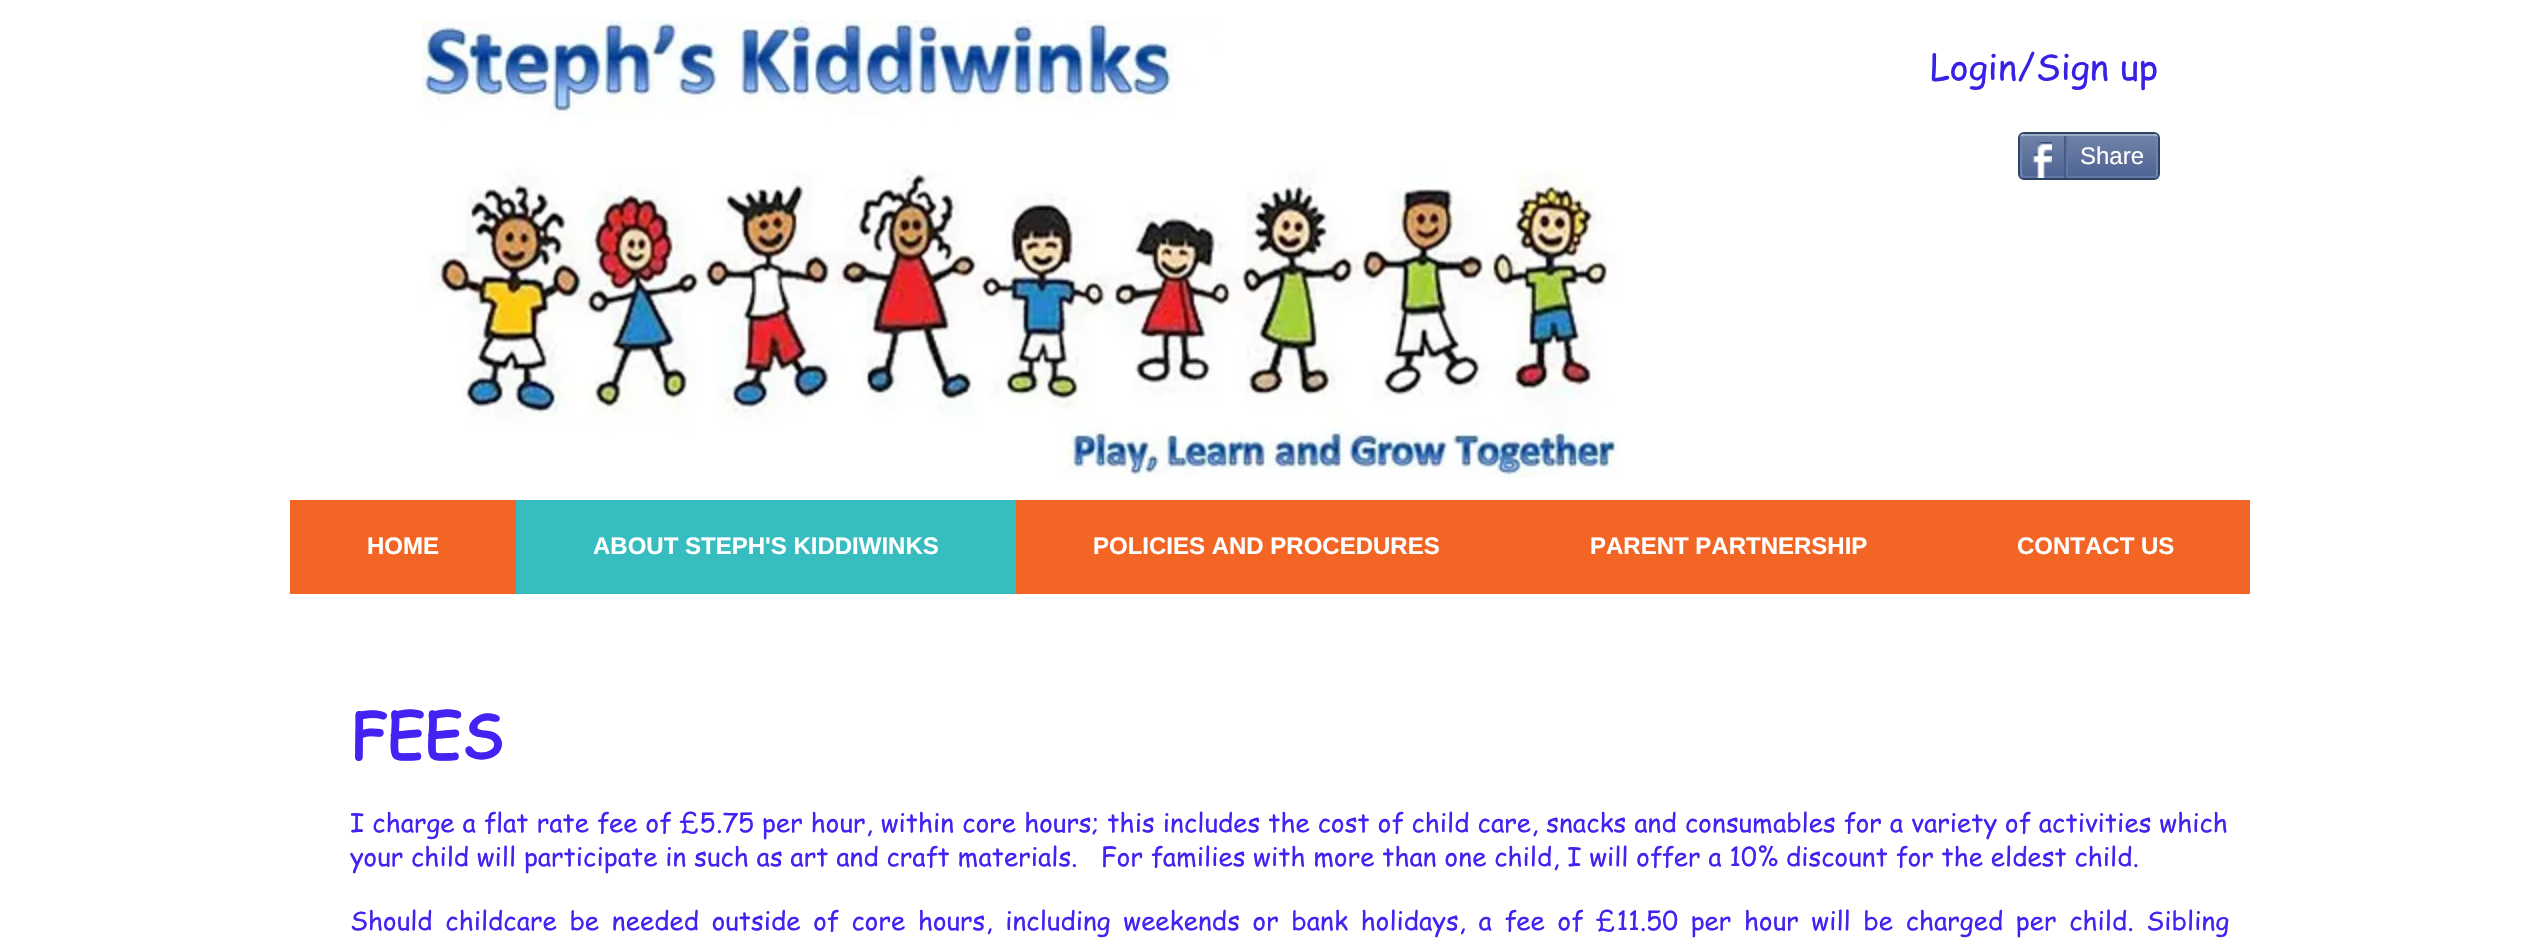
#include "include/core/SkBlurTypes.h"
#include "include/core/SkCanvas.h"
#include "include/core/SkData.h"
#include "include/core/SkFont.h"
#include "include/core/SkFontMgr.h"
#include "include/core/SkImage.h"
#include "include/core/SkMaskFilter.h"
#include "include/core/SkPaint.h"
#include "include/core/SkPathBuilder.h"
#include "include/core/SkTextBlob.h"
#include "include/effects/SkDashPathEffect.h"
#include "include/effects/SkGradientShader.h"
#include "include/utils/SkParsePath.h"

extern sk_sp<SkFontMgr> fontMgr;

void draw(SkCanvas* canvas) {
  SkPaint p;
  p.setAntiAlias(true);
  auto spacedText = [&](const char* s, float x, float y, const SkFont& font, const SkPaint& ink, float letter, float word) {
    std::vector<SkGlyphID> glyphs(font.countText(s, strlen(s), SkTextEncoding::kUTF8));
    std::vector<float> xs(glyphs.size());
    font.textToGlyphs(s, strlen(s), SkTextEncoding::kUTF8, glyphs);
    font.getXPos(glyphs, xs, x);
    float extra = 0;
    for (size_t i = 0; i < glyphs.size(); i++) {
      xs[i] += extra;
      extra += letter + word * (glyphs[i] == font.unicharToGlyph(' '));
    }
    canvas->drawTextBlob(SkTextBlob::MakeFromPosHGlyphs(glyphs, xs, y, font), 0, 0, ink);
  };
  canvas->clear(SK_ColorWHITE);
  canvas->drawImageRect(SkImages::DeferredFromEncodedData(SkData::MakeFromFileName("images/1.png")), SkRect::MakeLTRB(422, 20, 1622, 478), SkSamplingOptions());
  p.setStyle(SkPaint::kStroke_Style);
  p.setStrokeWidth(2);
  p.setColor(SkColorSetRGB(45, 69, 101));
  canvas->drawRoundRect(SkRect::MakeLTRB(2019, 133, 2159, 179), 5, 5, p);
  canvas->drawImageRect(SkImages::DeferredFromEncodedData(SkData::MakeFromFileName("images/2.png")), SkRect::MakeLTRB(2020, 136, 2158, 178), SkSamplingOptions());
  p.setColor(SkColorSetRGB(154, 171, 198));
  canvas->drawPath(SkPathBuilder().moveTo(2022, 136).lineTo(2024, 135).lineTo(2154, 135).lineTo(2156, 136).detach(), p);
  p.setColor(SkColorSetRGB(111, 131, 173));
  canvas->drawPath(SkPathBuilder().moveTo(2156, 136).lineTo(2157, 138).lineTo(2157, 174).lineTo(2156, 176).detach(), p);
  p.setColor(SkColorSetRGB(97, 118, 163));
  canvas->drawPath(SkPathBuilder().moveTo(2156, 176).lineTo(2154, 177).lineTo(2024, 177).lineTo(2022, 176).detach(), p);
  p.setColor(SkColorSetRGB(111, 131, 173));
  canvas->drawPath(SkPathBuilder().moveTo(2022, 176).lineTo(2021, 174).lineTo(2021, 138).lineTo(2022, 136).detach(), p);
  canvas->drawImageRect(SkImages::DeferredFromEncodedData(SkData::MakeFromFileName("images/3.png")), SkRect::MakeLTRB(2032, 142, 2052, 178), SkSamplingOptions());
  p.setStyle(SkPaint::kFill_Style);
  p.setColor(SkColorSetRGB(66, 94, 133));
  canvas->drawRect(SkRect::MakeLTRB(2064, 136, 2066, 178), p);
  p.setColor(SkColorSetRGB(97, 118, 163));
  canvas->drawRect(SkRect::MakeLTRB(2066, 136, 2068, 176), p);
  p.setColor(SkColorSetRGB(242, 101, 36));
  canvas->drawRect(SkRect::MakeLTRB(290, 500, 516, 594), p);
  p.setColor(SkColorSetRGB(55, 189, 191));
  canvas->drawRect(SkRect::MakeLTRB(516, 500, 1016, 594), p);
  p.setColor(SkColorSetRGB(242, 101, 36));
  canvas->drawRect(SkRect::MakeLTRB(1016, 500, 2250, 594), p);
  SkFont font1(fontMgr->matchFamilyStyle("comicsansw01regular", SkFontStyle::Normal()), 36);
  font1.setSubpixel(true);
  p.setColor(SkColorSetRGB(54, 33, 228));
  canvas->drawString("Login/Sign up", 1930, 80, font1, p);
  SkFont font2(fontMgr->matchFamilyStyle("Liberation Sans", SkFontStyle::Normal()), 24);
  font2.setSubpixel(true);
  p.setColor(SK_ColorWHITE);
  canvas->drawString("Share", 2080, 164, font2, p);
  SkFont font3(fontMgr->matchFamilyStyle("Liberation Sans", SkFontStyle::Bold()), 24);
  font3.setSubpixel(true);
  canvas->drawString("HOME", 367, 554, font3, p);
  canvas->drawString("ABOUT STEPH'S KIDDIWINKS", 593, 554, font3, p);
  canvas->drawString("POLICIES AND PROCEDURES", 1093, 554, font3, p);
  canvas->drawString("PARENT PARTNERSHIP", 1590, 554, font3, p);
  canvas->drawString("CONTACT US", 2017, 554, font3, p);
  SkFont font4(fontMgr->matchFamilyStyle("comicsansw01regular", SkFontStyle::Bold()), 60);
  font4.setSubpixel(true);
  p.setColor(SkColorSetRGB(66, 35, 241));
  canvas->drawString("FEES", 350, 758, font4, p);
  SkFont font5(fontMgr->matchFamilyStyle("comicsansw01regular", SkFontStyle::Normal()), 26);
  font5.setSubpixel(true);
  spacedText("I charge a flat rate fee of £5", 350, 832, font5, p, 0, 0.3f);
  canvas->drawString(".75", 716, 832, font5, p);
  spacedText("per hour, within core hours; this includes the cost of child care, snacks and consumables for a variety of activities which", 762, 832, font5, p, 0, 0.3f);
  canvas->drawString("your child will participate in such as art and craft materials.", 350, 866, font5, p);
  canvas->drawString("For families with more than one child, I will offer a 10% discount for the eldest child.", 1101, 866, font5, p);
  spacedText("Should childcare be needed outside of core hours, including weekends or bank holidays, a fee of £11.50 per hour will be charged per child. Sibling", 350, 930, font5, p, 0, 4.9f);
}
